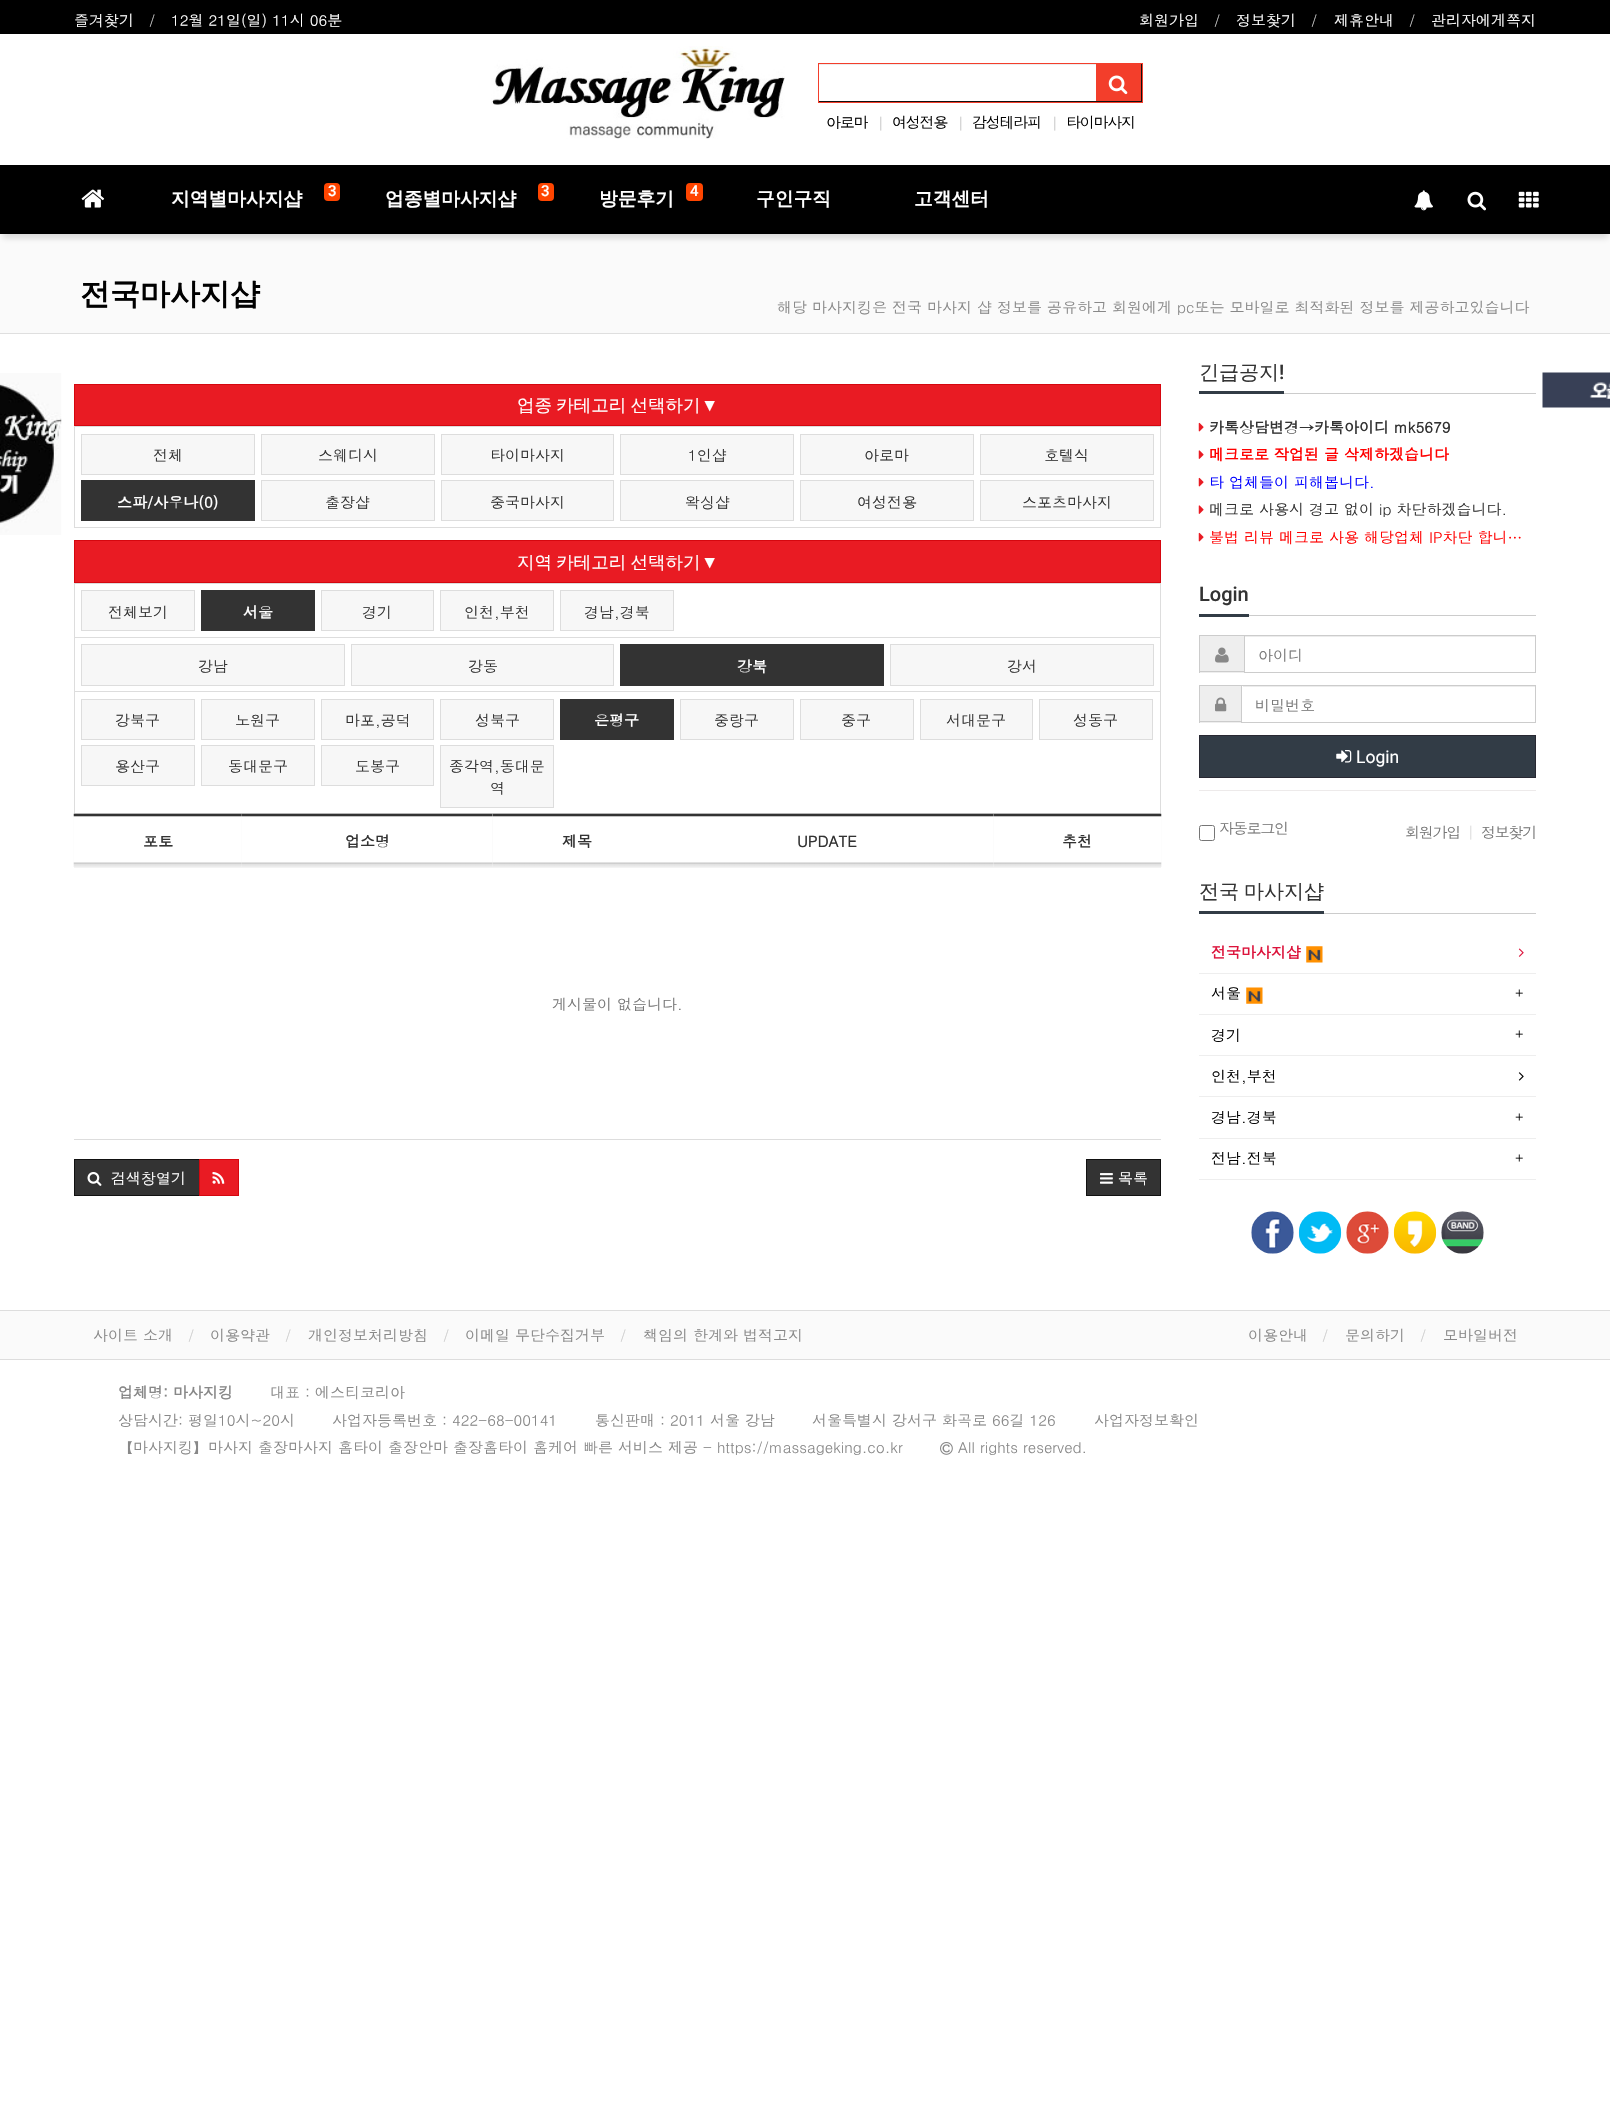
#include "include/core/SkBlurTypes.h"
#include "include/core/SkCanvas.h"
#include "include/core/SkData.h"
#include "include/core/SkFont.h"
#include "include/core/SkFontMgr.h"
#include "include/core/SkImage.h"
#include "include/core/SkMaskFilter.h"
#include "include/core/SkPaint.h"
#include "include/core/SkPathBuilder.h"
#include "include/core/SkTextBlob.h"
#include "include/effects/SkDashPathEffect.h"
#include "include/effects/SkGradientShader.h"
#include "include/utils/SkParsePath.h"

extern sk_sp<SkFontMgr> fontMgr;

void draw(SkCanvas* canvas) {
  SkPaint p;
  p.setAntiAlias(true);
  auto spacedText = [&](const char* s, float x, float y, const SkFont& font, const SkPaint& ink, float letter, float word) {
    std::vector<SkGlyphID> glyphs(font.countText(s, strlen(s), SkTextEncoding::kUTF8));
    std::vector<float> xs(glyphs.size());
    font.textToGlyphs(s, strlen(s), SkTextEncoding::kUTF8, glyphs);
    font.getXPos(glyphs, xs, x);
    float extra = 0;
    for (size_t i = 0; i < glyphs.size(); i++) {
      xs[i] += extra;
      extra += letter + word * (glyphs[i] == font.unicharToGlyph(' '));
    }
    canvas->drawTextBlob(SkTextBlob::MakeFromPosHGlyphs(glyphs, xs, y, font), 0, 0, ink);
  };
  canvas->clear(SK_ColorWHITE);
  canvas->drawImageRect(SkImages::DeferredFromEncodedData(SkData::MakeFromFileName("images/1.png")), SkRect::MakeLTRB(0, 373, 62, 535), SkSamplingOptions());
  p.setColor(SK_ColorBLACK);
  canvas->drawRect(SkRect::MakeLTRB(0, 0, 1610, 34), p);
  canvas->drawImageRect(SkImages::DeferredFromEncodedData(SkData::MakeFromFileName("images/2.png")), SkRect::MakeLTRB(491, 46, 785, 139), SkSamplingOptions());
  p.setColor(SkColorSetRGB(17, 17, 17));
  canvas->drawRect(SkRect::MakeLTRB(818.5f, 63.5f, 1142.5f, 102.5f), p);
  p.setStyle(SkPaint::kStroke_Style);
  p.setStrokeWidth(1);
  p.setColor(SkColorSetRGB(243, 62, 43));
  canvas->drawRect(SkRect::MakeLTRB(818.5f, 63.5f, 1142.5f, 102.5f), p);
  p.setStyle(SkPaint::kFill_Style);
  p.setColor(SK_ColorWHITE);
  canvas->drawRect(SkRect::MakeLTRB(819, 65, 1096, 101), p);
  p.setColor(SkColorSetRGB(236, 236, 236));
  canvas->drawRect(SkRect::MakeLTRB(819, 64, 1096, 65), p);
  p.setColor(SkColorSetRGB(243, 62, 43));
  canvas->drawRect(SkRect::MakeLTRB(1096, 64, 1141, 101), p);
  canvas->drawImageRect(SkImages::DeferredFromEncodedData(SkData::MakeFromFileName("images/3.png")), SkRect::MakeLTRB(1108, 75, 1128, 95), SkSamplingOptions());
  p.setColor(SkColorSetRGB(250, 250, 250));
  canvas->drawRect(SkRect::MakeLTRB(0, 234, 1610, 333), p);
  p.setColor(SkColorSetARGB(38, 25, 25, 25));
  p.setMaskFilter(SkMaskFilter::MakeBlur(kNormal_SkBlurStyle, 3));
  canvas->drawRect(SkRect::MakeLTRB(3, 174, 1608, 238), p);
  p.setMaskFilter(nullptr);
  p.setColor(SK_ColorBLACK);
  canvas->drawRect(SkRect::MakeLTRB(0, 165, 1610, 234), p);
  canvas->drawImageRect(SkImages::DeferredFromEncodedData(SkData::MakeFromFileName("images/4.png")), SkRect::MakeLTRB(81, 189, 105, 208), SkSamplingOptions());
  p.setColor(SkColorSetRGB(255, 69, 0));
  canvas->drawRoundRect(SkRect::MakeLTRB(324, 183, 340, 201), 4, 4, p);
  canvas->drawRoundRect(SkRect::MakeLTRB(538, 183, 554, 201), 4, 4, p);
  canvas->drawRoundRect(SkRect::MakeLTRB(686, 183, 703, 201), 4, 4, p);
  canvas->drawImageRect(SkImages::DeferredFromEncodedData(SkData::MakeFromFileName("images/5.png")), SkRect::MakeLTRB(1414, 190, 1433, 211), SkSamplingOptions());
  canvas->drawImageRect(SkImages::DeferredFromEncodedData(SkData::MakeFromFileName("images/6.png")), SkRect::MakeLTRB(1467, 191, 1486, 211), SkSamplingOptions());
  canvas->drawImageRect(SkImages::DeferredFromEncodedData(SkData::MakeFromFileName("images/7.png")), SkRect::MakeLTRB(1518, 191, 1539, 208), SkSamplingOptions());
  p.setColor(SkColorSetRGB(223, 223, 223));
  canvas->drawRect(SkRect::MakeLTRB(0, 333, 1610, 334), p);
  p.setColor(SkColorSetRGB(233, 27, 35));
  canvas->drawRect(SkRect::MakeLTRB(74.5f, 384.5f, 1160.5f, 425.5f), p);
  p.setStyle(SkPaint::kStroke_Style);
  p.setColor(SkColorSetRGB(213, 7, 15));
  canvas->drawRect(SkRect::MakeLTRB(74.5f, 384.5f, 1160.5f, 425.5f), p);
  p.setColor(SkColorSetRGB(221, 221, 221));
  canvas->drawRect(SkRect::MakeLTRB(74.5f, 426.5f, 1160.5f, 527.5f), p);
  p.setStyle(SkPaint::kFill_Style);
  p.setColor(SkColorSetRGB(247, 247, 247));
  canvas->drawRect(SkRect::MakeLTRB(81.5f, 434.5f, 254.5f, 474.5f), p);
  p.setStyle(SkPaint::kStroke_Style);
  p.setColor(SkColorSetRGB(221, 221, 221));
  canvas->drawRect(SkRect::MakeLTRB(81.5f, 434.5f, 254.5f, 474.5f), p);
  p.setStyle(SkPaint::kFill_Style);
  p.setColor(SkColorSetRGB(247, 247, 247));
  canvas->drawRect(SkRect::MakeLTRB(261.5f, 434.5f, 434.5f, 474.5f), p);
  p.setStyle(SkPaint::kStroke_Style);
  p.setColor(SkColorSetRGB(221, 221, 221));
  canvas->drawRect(SkRect::MakeLTRB(261.5f, 434.5f, 434.5f, 474.5f), p);
  p.setStyle(SkPaint::kFill_Style);
  p.setColor(SkColorSetRGB(247, 247, 247));
  canvas->drawRect(SkRect::MakeLTRB(441.5f, 434.5f, 613.5f, 474.5f), p);
  p.setStyle(SkPaint::kStroke_Style);
  p.setColor(SkColorSetRGB(221, 221, 221));
  canvas->drawRect(SkRect::MakeLTRB(441.5f, 434.5f, 613.5f, 474.5f), p);
  p.setStyle(SkPaint::kFill_Style);
  p.setColor(SkColorSetRGB(247, 247, 247));
  canvas->drawRect(SkRect::MakeLTRB(620.5f, 434.5f, 793.5f, 474.5f), p);
  p.setStyle(SkPaint::kStroke_Style);
  p.setColor(SkColorSetRGB(221, 221, 221));
  canvas->drawRect(SkRect::MakeLTRB(620.5f, 434.5f, 793.5f, 474.5f), p);
  p.setStyle(SkPaint::kFill_Style);
  p.setColor(SkColorSetRGB(247, 247, 247));
  canvas->drawRect(SkRect::MakeLTRB(800.5f, 434.5f, 973.5f, 474.5f), p);
  p.setStyle(SkPaint::kStroke_Style);
  p.setColor(SkColorSetRGB(221, 221, 221));
  canvas->drawRect(SkRect::MakeLTRB(800.5f, 434.5f, 973.5f, 474.5f), p);
  p.setStyle(SkPaint::kFill_Style);
  p.setColor(SkColorSetRGB(247, 247, 247));
  canvas->drawRect(SkRect::MakeLTRB(980.5f, 434.5f, 1153.5f, 474.5f), p);
  p.setStyle(SkPaint::kStroke_Style);
  p.setColor(SkColorSetRGB(221, 221, 221));
  canvas->drawRect(SkRect::MakeLTRB(980.5f, 434.5f, 1153.5f, 474.5f), p);
  p.setStyle(SkPaint::kFill_Style);
  p.setColor(SkColorSetRGB(51, 51, 51));
  canvas->drawRect(SkRect::MakeLTRB(81, 480, 255, 521), p);
  p.setColor(SkColorSetRGB(247, 247, 247));
  canvas->drawRect(SkRect::MakeLTRB(261.5f, 480.5f, 434.5f, 520.5f), p);
  p.setStyle(SkPaint::kStroke_Style);
  p.setColor(SkColorSetRGB(221, 221, 221));
  canvas->drawRect(SkRect::MakeLTRB(261.5f, 480.5f, 434.5f, 520.5f), p);
  p.setStyle(SkPaint::kFill_Style);
  p.setColor(SkColorSetRGB(247, 247, 247));
  canvas->drawRect(SkRect::MakeLTRB(441.5f, 480.5f, 613.5f, 520.5f), p);
  p.setStyle(SkPaint::kStroke_Style);
  p.setColor(SkColorSetRGB(221, 221, 221));
  canvas->drawRect(SkRect::MakeLTRB(441.5f, 480.5f, 613.5f, 520.5f), p);
  p.setStyle(SkPaint::kFill_Style);
  p.setColor(SkColorSetRGB(247, 247, 247));
  canvas->drawRect(SkRect::MakeLTRB(620.5f, 480.5f, 793.5f, 520.5f), p);
  p.setStyle(SkPaint::kStroke_Style);
  p.setColor(SkColorSetRGB(221, 221, 221));
  canvas->drawRect(SkRect::MakeLTRB(620.5f, 480.5f, 793.5f, 520.5f), p);
  p.setStyle(SkPaint::kFill_Style);
  p.setColor(SkColorSetRGB(247, 247, 247));
  canvas->drawRect(SkRect::MakeLTRB(800.5f, 480.5f, 973.5f, 520.5f), p);
  p.setStyle(SkPaint::kStroke_Style);
  p.setColor(SkColorSetRGB(221, 221, 221));
  canvas->drawRect(SkRect::MakeLTRB(800.5f, 480.5f, 973.5f, 520.5f), p);
  p.setStyle(SkPaint::kFill_Style);
  p.setColor(SkColorSetRGB(247, 247, 247));
  canvas->drawRect(SkRect::MakeLTRB(980.5f, 480.5f, 1153.5f, 520.5f), p);
  p.setStyle(SkPaint::kStroke_Style);
  p.setColor(SkColorSetRGB(221, 221, 221));
  canvas->drawRect(SkRect::MakeLTRB(980.5f, 480.5f, 1153.5f, 520.5f), p);
  p.setStyle(SkPaint::kFill_Style);
  p.setColor(SkColorSetRGB(233, 27, 35));
  canvas->drawRect(SkRect::MakeLTRB(74.5f, 540.5f, 1160.5f, 582.5f), p);
  p.setStyle(SkPaint::kStroke_Style);
  p.setColor(SkColorSetRGB(213, 7, 15));
  canvas->drawRect(SkRect::MakeLTRB(74.5f, 540.5f, 1160.5f, 582.5f), p);
  p.setColor(SkColorSetRGB(221, 221, 221));
  canvas->drawRect(SkRect::MakeLTRB(74.5f, 583.5f, 1160.5f, 637.5f), p);
  p.setStyle(SkPaint::kFill_Style);
  p.setColor(SkColorSetRGB(247, 247, 247));
  canvas->drawRect(SkRect::MakeLTRB(81.5f, 590.5f, 194.5f, 630.5f), p);
  p.setStyle(SkPaint::kStroke_Style);
  p.setColor(SkColorSetRGB(221, 221, 221));
  canvas->drawRect(SkRect::MakeLTRB(81.5f, 590.5f, 194.5f, 630.5f), p);
  p.setStyle(SkPaint::kFill_Style);
  p.setColor(SkColorSetRGB(51, 51, 51));
  canvas->drawRect(SkRect::MakeLTRB(201, 590, 315, 631), p);
  p.setColor(SkColorSetRGB(247, 247, 247));
  canvas->drawRect(SkRect::MakeLTRB(321.5f, 590.5f, 433.5f, 630.5f), p);
  p.setStyle(SkPaint::kStroke_Style);
  p.setColor(SkColorSetRGB(221, 221, 221));
  canvas->drawRect(SkRect::MakeLTRB(321.5f, 590.5f, 433.5f, 630.5f), p);
  p.setStyle(SkPaint::kFill_Style);
  p.setColor(SkColorSetRGB(247, 247, 247));
  canvas->drawRect(SkRect::MakeLTRB(440.5f, 590.5f, 553.5f, 630.5f), p);
  p.setStyle(SkPaint::kStroke_Style);
  p.setColor(SkColorSetRGB(221, 221, 221));
  canvas->drawRect(SkRect::MakeLTRB(440.5f, 590.5f, 553.5f, 630.5f), p);
  p.setStyle(SkPaint::kFill_Style);
  p.setColor(SkColorSetRGB(247, 247, 247));
  canvas->drawRect(SkRect::MakeLTRB(560.5f, 590.5f, 673.5f, 630.5f), p);
  p.setStyle(SkPaint::kStroke_Style);
  p.setColor(SkColorSetRGB(221, 221, 221));
  canvas->drawRect(SkRect::MakeLTRB(560.5f, 590.5f, 673.5f, 630.5f), p);
  p.setStyle(SkPaint::kFill_Style);
  canvas->drawRect(SkRect::MakeLTRB(1160, 638, 1161, 814), p);
  canvas->drawRect(SkRect::MakeLTRB(74, 691, 1161, 692), p);
  canvas->drawRect(SkRect::MakeLTRB(74, 638, 75, 693), p);
  p.setColor(SkColorSetRGB(247, 247, 247));
  canvas->drawRect(SkRect::MakeLTRB(81.5f, 644.5f, 344.5f, 685.5f), p);
  p.setStyle(SkPaint::kStroke_Style);
  p.setColor(SkColorSetRGB(221, 221, 221));
  canvas->drawRect(SkRect::MakeLTRB(81.5f, 644.5f, 344.5f, 685.5f), p);
  p.setStyle(SkPaint::kFill_Style);
  p.setColor(SkColorSetRGB(247, 247, 247));
  canvas->drawRect(SkRect::MakeLTRB(351.5f, 644.5f, 613.5f, 685.5f), p);
  p.setStyle(SkPaint::kStroke_Style);
  p.setColor(SkColorSetRGB(221, 221, 221));
  canvas->drawRect(SkRect::MakeLTRB(351.5f, 644.5f, 613.5f, 685.5f), p);
  p.setStyle(SkPaint::kFill_Style);
  p.setColor(SkColorSetRGB(51, 51, 51));
  canvas->drawRect(SkRect::MakeLTRB(620, 644, 884, 686), p);
  p.setColor(SkColorSetRGB(247, 247, 247));
  canvas->drawRect(SkRect::MakeLTRB(890.5f, 644.5f, 1153.5f, 685.5f), p);
  p.setStyle(SkPaint::kStroke_Style);
  p.setColor(SkColorSetRGB(221, 221, 221));
  canvas->drawRect(SkRect::MakeLTRB(890.5f, 644.5f, 1153.5f, 685.5f), p);
  p.setStyle(SkPaint::kFill_Style);
  canvas->drawRect(SkRect::MakeLTRB(74, 813, 1161, 814), p);
  canvas->drawRect(SkRect::MakeLTRB(74, 693, 75, 814), p);
  p.setColor(SkColorSetRGB(247, 247, 247));
  canvas->drawRect(SkRect::MakeLTRB(81.5f, 699.5f, 194.5f, 739.5f), p);
  p.setStyle(SkPaint::kStroke_Style);
  p.setColor(SkColorSetRGB(221, 221, 221));
  canvas->drawRect(SkRect::MakeLTRB(81.5f, 699.5f, 194.5f, 739.5f), p);
  p.setStyle(SkPaint::kFill_Style);
  p.setColor(SkColorSetRGB(247, 247, 247));
  canvas->drawRect(SkRect::MakeLTRB(201.5f, 699.5f, 314.5f, 739.5f), p);
  p.setStyle(SkPaint::kStroke_Style);
  p.setColor(SkColorSetRGB(221, 221, 221));
  canvas->drawRect(SkRect::MakeLTRB(201.5f, 699.5f, 314.5f, 739.5f), p);
  p.setStyle(SkPaint::kFill_Style);
  p.setColor(SkColorSetRGB(247, 247, 247));
  canvas->drawRect(SkRect::MakeLTRB(321.5f, 699.5f, 433.5f, 739.5f), p);
  p.setStyle(SkPaint::kStroke_Style);
  p.setColor(SkColorSetRGB(221, 221, 221));
  canvas->drawRect(SkRect::MakeLTRB(321.5f, 699.5f, 433.5f, 739.5f), p);
  p.setStyle(SkPaint::kFill_Style);
  p.setColor(SkColorSetRGB(247, 247, 247));
  canvas->drawRect(SkRect::MakeLTRB(440.5f, 699.5f, 553.5f, 739.5f), p);
  p.setStyle(SkPaint::kStroke_Style);
  p.setColor(SkColorSetRGB(221, 221, 221));
  canvas->drawRect(SkRect::MakeLTRB(440.5f, 699.5f, 553.5f, 739.5f), p);
  p.setStyle(SkPaint::kFill_Style);
  p.setColor(SkColorSetRGB(51, 51, 51));
  canvas->drawRect(SkRect::MakeLTRB(560, 699, 674, 740), p);
  p.setColor(SkColorSetRGB(247, 247, 247));
  canvas->drawRect(SkRect::MakeLTRB(680.5f, 699.5f, 793.5f, 739.5f), p);
  p.setStyle(SkPaint::kStroke_Style);
  p.setColor(SkColorSetRGB(221, 221, 221));
  canvas->drawRect(SkRect::MakeLTRB(680.5f, 699.5f, 793.5f, 739.5f), p);
  p.setStyle(SkPaint::kFill_Style);
  p.setColor(SkColorSetRGB(247, 247, 247));
  canvas->drawRect(SkRect::MakeLTRB(800.5f, 699.5f, 913.5f, 739.5f), p);
  p.setStyle(SkPaint::kStroke_Style);
  p.setColor(SkColorSetRGB(221, 221, 221));
  canvas->drawRect(SkRect::MakeLTRB(800.5f, 699.5f, 913.5f, 739.5f), p);
  p.setStyle(SkPaint::kFill_Style);
  p.setColor(SkColorSetRGB(247, 247, 247));
  canvas->drawRect(SkRect::MakeLTRB(920.5f, 699.5f, 1032.5f, 739.5f), p);
  p.setStyle(SkPaint::kStroke_Style);
  p.setColor(SkColorSetRGB(221, 221, 221));
  canvas->drawRect(SkRect::MakeLTRB(920.5f, 699.5f, 1032.5f, 739.5f), p);
  p.setStyle(SkPaint::kFill_Style);
  p.setColor(SkColorSetRGB(247, 247, 247));
  canvas->drawRect(SkRect::MakeLTRB(1039.5f, 699.5f, 1152.5f, 739.5f), p);
  p.setStyle(SkPaint::kStroke_Style);
  p.setColor(SkColorSetRGB(221, 221, 221));
  canvas->drawRect(SkRect::MakeLTRB(1039.5f, 699.5f, 1152.5f, 739.5f), p);
  p.setStyle(SkPaint::kFill_Style);
  p.setColor(SkColorSetRGB(247, 247, 247));
  canvas->drawRect(SkRect::MakeLTRB(81.5f, 745.5f, 194.5f, 785.5f), p);
  p.setStyle(SkPaint::kStroke_Style);
  p.setColor(SkColorSetRGB(221, 221, 221));
  canvas->drawRect(SkRect::MakeLTRB(81.5f, 745.5f, 194.5f, 785.5f), p);
  p.setStyle(SkPaint::kFill_Style);
  p.setColor(SkColorSetRGB(247, 247, 247));
  canvas->drawRect(SkRect::MakeLTRB(201.5f, 745.5f, 314.5f, 785.5f), p);
  p.setStyle(SkPaint::kStroke_Style);
  p.setColor(SkColorSetRGB(221, 221, 221));
  canvas->drawRect(SkRect::MakeLTRB(201.5f, 745.5f, 314.5f, 785.5f), p);
  p.setStyle(SkPaint::kFill_Style);
  p.setColor(SkColorSetRGB(247, 247, 247));
  canvas->drawRect(SkRect::MakeLTRB(321.5f, 745.5f, 433.5f, 785.5f), p);
  p.setStyle(SkPaint::kStroke_Style);
  p.setColor(SkColorSetRGB(221, 221, 221));
  canvas->drawRect(SkRect::MakeLTRB(321.5f, 745.5f, 433.5f, 785.5f), p);
  p.setStyle(SkPaint::kFill_Style);
  p.setColor(SkColorSetRGB(247, 247, 247));
  canvas->drawRect(SkRect::MakeLTRB(440.5f, 745.5f, 553.5f, 807.5f), p);
  p.setStyle(SkPaint::kStroke_Style);
  p.setColor(SkColorSetRGB(221, 221, 221));
  canvas->drawRect(SkRect::MakeLTRB(440.5f, 745.5f, 553.5f, 807.5f), p);
  p.setStyle(SkPaint::kFill_Style);
  canvas->drawRect(SkRect::MakeLTRB(74, 1139, 1161, 1140), p);
  p.setColor(SkColorSetRGB(243, 243, 243));
  canvas->drawRect(SkRect::MakeLTRB(74, 814, 1161, 868), p);
  canvas->drawImageRect(SkImages::DeferredFromEncodedData(SkData::MakeFromFileName("images/8.png")), SkRect::MakeLTRB(73, 813, 242, 867), SkSamplingOptions());
  canvas->drawImageRect(SkImages::DeferredFromEncodedData(SkData::MakeFromFileName("images/9.png")), SkRect::MakeLTRB(241, 813, 493, 867), SkSamplingOptions());
  canvas->drawImageRect(SkImages::DeferredFromEncodedData(SkData::MakeFromFileName("images/10.png")), SkRect::MakeLTRB(492, 813, 660, 867), SkSamplingOptions());
  canvas->drawImageRect(SkImages::DeferredFromEncodedData(SkData::MakeFromFileName("images/11.png")), SkRect::MakeLTRB(660, 813, 994, 867), SkSamplingOptions());
  canvas->drawImageRect(SkImages::DeferredFromEncodedData(SkData::MakeFromFileName("images/12.png")), SkRect::MakeLTRB(993, 813, 1162, 867), SkSamplingOptions());
  p.setColor(SkColorSetRGB(51, 51, 51));
  canvas->drawRect(SkRect::MakeLTRB(74.5f, 1159.5f, 199.5f, 1195.5f), p);
  p.setStyle(SkPaint::kStroke_Style);
  p.setColor(SkColorSetRGB(17, 17, 17));
  canvas->drawRect(SkRect::MakeLTRB(74.5f, 1159.5f, 199.5f, 1195.5f), p);
  canvas->drawImageRect(SkImages::DeferredFromEncodedData(SkData::MakeFromFileName("images/13.png")), SkRect::MakeLTRB(87, 1172, 102, 1186), SkSamplingOptions());
  p.setStyle(SkPaint::kFill_Style);
  p.setColor(SkColorSetRGB(233, 27, 35));
  canvas->drawRect(SkRect::MakeLTRB(199.5f, 1159.5f, 238.5f, 1195.5f), p);
  p.setStyle(SkPaint::kStroke_Style);
  p.setColor(SkColorSetRGB(213, 7, 15));
  canvas->drawRect(SkRect::MakeLTRB(199.5f, 1159.5f, 238.5f, 1195.5f), p);
  canvas->drawImageRect(SkImages::DeferredFromEncodedData(SkData::MakeFromFileName("images/14.png")), SkRect::MakeLTRB(212, 1172, 225, 1184), SkSamplingOptions());
  p.setStyle(SkPaint::kFill_Style);
  p.setColor(SkColorSetRGB(51, 51, 51));
  canvas->drawRect(SkRect::MakeLTRB(1086.5f, 1159.5f, 1160.5f, 1195.5f), p);
  p.setStyle(SkPaint::kStroke_Style);
  p.setColor(SkColorSetRGB(17, 17, 17));
  canvas->drawRect(SkRect::MakeLTRB(1086.5f, 1159.5f, 1160.5f, 1195.5f), p);
  canvas->drawImageRect(SkImages::DeferredFromEncodedData(SkData::MakeFromFileName("images/15.png")), SkRect::MakeLTRB(1100, 1173, 1113, 1184), SkSamplingOptions());
  p.setStyle(SkPaint::kFill_Style);
  p.setColor(SkColorSetRGB(204, 204, 204));
  canvas->drawRect(SkRect::MakeLTRB(1284, 393, 1536, 394), p);
  p.setColor(SkColorSetRGB(50, 60, 70));
  canvas->drawRect(SkRect::MakeLTRB(1199, 391, 1284, 394), p);
  canvas->drawImageRect(SkImages::DeferredFromEncodedData(SkData::MakeFromFileName("images/16.png")), SkRect::MakeLTRB(1198, 422, 1204, 432), SkSamplingOptions());
  canvas->drawImageRect(SkImages::DeferredFromEncodedData(SkData::MakeFromFileName("images/17.png")), SkRect::MakeLTRB(1198, 450, 1204, 459), SkSamplingOptions());
  canvas->drawImageRect(SkImages::DeferredFromEncodedData(SkData::MakeFromFileName("images/16.png")), SkRect::MakeLTRB(1198, 477, 1204, 487), SkSamplingOptions());
  canvas->drawImageRect(SkImages::DeferredFromEncodedData(SkData::MakeFromFileName("images/17.png")), SkRect::MakeLTRB(1198, 505, 1204, 514), SkSamplingOptions());
  canvas->drawImageRect(SkImages::DeferredFromEncodedData(SkData::MakeFromFileName("images/16.png")), SkRect::MakeLTRB(1198, 532, 1204, 542), SkSamplingOptions());
  p.setColor(SkColorSetRGB(204, 204, 204));
  canvas->drawRect(SkRect::MakeLTRB(1249, 615, 1536, 616), p);
  p.setColor(SkColorSetRGB(50, 60, 70));
  canvas->drawRect(SkRect::MakeLTRB(1199, 614, 1249, 617), p);
  p.setColor(SkColorSetRGB(238, 238, 238));
  canvas->drawRect(SkRect::MakeLTRB(1200, 636, 1244, 673), p);
  p.setColor(SkColorSetRGB(204, 204, 204));
  canvas->drawRect(SkRect::MakeLTRB(1199, 635, 1244, 636), p);
  canvas->drawRect(SkRect::MakeLTRB(1199, 671, 1244, 672), p);
  canvas->drawRect(SkRect::MakeLTRB(1199, 635, 1200, 673), p);
  canvas->drawImageRect(SkImages::DeferredFromEncodedData(SkData::MakeFromFileName("images/18.png")), SkRect::MakeLTRB(1215, 647, 1229, 663), SkSamplingOptions());
  p.setColor(SkColorSetRGB(236, 236, 236));
  canvas->drawRect(SkRect::MakeLTRB(1245, 636, 1535, 637), p);
  p.setStyle(SkPaint::kStroke_Style);
  p.setColor(SkColorSetRGB(204, 204, 204));
  canvas->drawRect(SkRect::MakeLTRB(1244.5f, 635.5f, 1535.5f, 672.5f), p);
  p.setStyle(SkPaint::kFill_Style);
  p.setColor(SkColorSetRGB(238, 238, 238));
  canvas->drawRect(SkRect::MakeLTRB(1200, 686, 1241, 723), p);
  p.setColor(SkColorSetRGB(204, 204, 204));
  canvas->drawRect(SkRect::MakeLTRB(1199, 685, 1241, 686), p);
  canvas->drawRect(SkRect::MakeLTRB(1199, 721, 1241, 722), p);
  canvas->drawRect(SkRect::MakeLTRB(1199, 685, 1200, 723), p);
  canvas->drawImageRect(SkImages::DeferredFromEncodedData(SkData::MakeFromFileName("images/19.png")), SkRect::MakeLTRB(1215, 697, 1227, 712), SkSamplingOptions());
  p.setColor(SkColorSetRGB(236, 236, 236));
  canvas->drawRect(SkRect::MakeLTRB(1243, 686, 1535, 687), p);
  p.setStyle(SkPaint::kStroke_Style);
  p.setColor(SkColorSetRGB(204, 204, 204));
  canvas->drawRect(SkRect::MakeLTRB(1241.5f, 685.5f, 1535.5f, 722.5f), p);
  p.setStyle(SkPaint::kFill_Style);
  p.setColor(SkColorSetRGB(50, 60, 70));
  canvas->drawRect(SkRect::MakeLTRB(1199.5f, 735.5f, 1535.5f, 777.5f), p);
  p.setStyle(SkPaint::kStroke_Style);
  p.setColor(SkColorSetRGB(40, 40, 50));
  canvas->drawRect(SkRect::MakeLTRB(1199.5f, 735.5f, 1535.5f, 777.5f), p);
  canvas->drawImageRect(SkImages::DeferredFromEncodedData(SkData::MakeFromFileName("images/20.png")), SkRect::MakeLTRB(1336, 750, 1352, 763), SkSamplingOptions());
  p.setStyle(SkPaint::kFill_Style);
  p.setColor(SkColorSetRGB(237, 234, 234));
  canvas->drawRect(SkRect::MakeLTRB(1199, 790, 1536, 791), p);
  p.setStyle(SkPaint::kStroke_Style);
  p.setColor(SkColorSetRGB(118, 118, 118));
  canvas->drawRoundRect(SkRect::MakeLTRB(1199.5f, 825.5f, 1214.5f, 840.5f), 2, 2, p);
  p.setStyle(SkPaint::kFill_Style);
  p.setColor(SkColorSetRGB(204, 204, 204));
  canvas->drawRect(SkRect::MakeLTRB(1324, 913, 1536, 914), p);
  p.setColor(SkColorSetRGB(50, 60, 70));
  canvas->drawRect(SkRect::MakeLTRB(1199, 911, 1324, 914), p);
  p.setColor(SkColorSetRGB(238, 238, 238));
  canvas->drawRect(SkRect::MakeLTRB(1199, 973, 1536, 974), p);
  canvas->drawImageRect(SkImages::DeferredFromEncodedData(SkData::MakeFromFileName("images/21.png")), SkRect::MakeLTRB(1306, 946, 1323, 963), SkSamplingOptions());
  canvas->drawImageRect(SkImages::DeferredFromEncodedData(SkData::MakeFromFileName("images/22.png")), SkRect::MakeLTRB(1518, 948, 1524, 957), SkSamplingOptions());
  canvas->drawRect(SkRect::MakeLTRB(1199, 1014, 1536, 1015), p);
  canvas->drawImageRect(SkImages::DeferredFromEncodedData(SkData::MakeFromFileName("images/23.png")), SkRect::MakeLTRB(1246, 987, 1263, 1004), SkSamplingOptions());
  canvas->drawRect(SkRect::MakeLTRB(1199, 1055, 1536, 1056), p);
  canvas->drawRect(SkRect::MakeLTRB(1199, 1096, 1536, 1097), p);
  canvas->drawImageRect(SkImages::DeferredFromEncodedData(SkData::MakeFromFileName("images/24.png")), SkRect::MakeLTRB(1518, 1072, 1524, 1081), SkSamplingOptions());
  canvas->drawRect(SkRect::MakeLTRB(1199, 1138, 1536, 1139), p);
  canvas->drawRect(SkRect::MakeLTRB(1199, 1179, 1536, 1180), p);
  canvas->drawImageRect(SkImages::DeferredFromEncodedData(SkData::MakeFromFileName("images/25.png")), SkRect::MakeLTRB(1251, 1211, 1294, 1254), SkSamplingOptions());
  canvas->drawImageRect(SkImages::DeferredFromEncodedData(SkData::MakeFromFileName("images/26.png")), SkRect::MakeLTRB(1298, 1211, 1342, 1254), SkSamplingOptions());
  canvas->drawImageRect(SkImages::DeferredFromEncodedData(SkData::MakeFromFileName("images/27.png")), SkRect::MakeLTRB(1346, 1211, 1389, 1254), SkSamplingOptions());
  canvas->drawImageRect(SkImages::DeferredFromEncodedData(SkData::MakeFromFileName("images/28.png")), SkRect::MakeLTRB(1393, 1211, 1437, 1254), SkSamplingOptions());
  canvas->drawImageRect(SkImages::DeferredFromEncodedData(SkData::MakeFromFileName("images/29.png")), SkRect::MakeLTRB(1441, 1211, 1484, 1254), SkSamplingOptions());
  p.setColor(SkColorSetRGB(250, 250, 250));
  canvas->drawRect(SkRect::MakeLTRB(0, 1311, 1610, 1359), p);
  p.setColor(SkColorSetRGB(221, 221, 221));
  canvas->drawRect(SkRect::MakeLTRB(0, 1310, 1610, 1311), p);
  canvas->drawRect(SkRect::MakeLTRB(0, 1359, 1610, 1360), p);
  canvas->drawImageRect(SkImages::DeferredFromEncodedData(SkData::MakeFromFileName("images/30.png")), SkRect::MakeLTRB(940, 1442, 953, 1455), SkSamplingOptions());
  canvas->drawImageRect(SkImages::DeferredFromEncodedData(SkData::MakeFromFileName("images/31.png")), SkRect::MakeLTRB(1542, 372, 1610, 408), SkSamplingOptions());
  SkFont font1(fontMgr->matchFamilyStyle("Dotum", SkFontStyle::Normal()), 15);
  font1.setSubpixel(true);
  p.setColor(SK_ColorWHITE);
  canvas->drawString("즐겨찾기", 74, 26, font1, p);
  p.setColor(SkColorSetRGB(204, 204, 204));
  canvas->drawString("/", 149, 26, font1, p);
  p.setColor(SK_ColorWHITE);
  canvas->drawString("12월 21일(일) 11시 06분", 171, 26, font1, p);
  canvas->drawString("회원가입", 1139, 26, font1, p);
  p.setColor(SkColorSetRGB(204, 204, 204));
  canvas->drawString("/", 1214, 26, font1, p);
  p.setColor(SK_ColorWHITE);
  canvas->drawString("정보찾기", 1236, 26, font1, p);
  p.setColor(SkColorSetRGB(204, 204, 204));
  canvas->drawString("/", 1311, 26, font1, p);
  p.setColor(SK_ColorWHITE);
  canvas->drawString("제휴안내", 1334, 26, font1, p);
  p.setColor(SkColorSetRGB(204, 204, 204));
  canvas->drawString("/", 1409, 26, font1, p);
  p.setColor(SK_ColorWHITE);
  canvas->drawString("관리자에게쪽지", 1431, 26, font1, p);
  p.setColor(SK_ColorBLACK);
  spacedText("아로마", 826, 128, font1, p, -1.25f, 0);
  p.setColor(SkColorSetRGB(204, 204, 204));
  spacedText("|", 877, 129, font1, p, -1.25f, 0);
  p.setColor(SK_ColorBLACK);
  spacedText("여성전용", 892, 128, font1, p, -1.25f, 0);
  p.setColor(SkColorSetRGB(204, 204, 204));
  spacedText("|", 957, 129, font1, p, -1.25f, 0);
  p.setColor(SK_ColorBLACK);
  spacedText("감성테라피", 972, 128, font1, p, -1.25f, 0);
  p.setColor(SkColorSetRGB(204, 204, 204));
  spacedText("|", 1051, 129, font1, p, -1.25f, 0);
  p.setColor(SK_ColorBLACK);
  spacedText("타이마사지", 1066, 128, font1, p, -1.25f, 0);
  SkFont font2(fontMgr->matchFamilyStyle("WenQuanYi Zen Hei", SkFontStyle::Bold()), 18.75f);
  font2.setSubpixel(true);
  p.setColor(SK_ColorWHITE);
  canvas->drawString("지역별마사지샵", 171, 205, font2, p);
  SkFont font3(fontMgr->matchFamilyStyle("Roboto", SkFontStyle(500, SkFontStyle::kNormal_Width, SkFontStyle::kUpright_Slant)), 15);
  font3.setSubpixel(true);
  canvas->drawString("3", 328, 196, font3, p);
  canvas->drawString("업종별마사지샵", 385, 205, font2, p);
  canvas->drawString("3", 541, 196, font3, p);
  canvas->drawString("방문후기", 599, 205, font2, p);
  canvas->drawString("4", 690, 196, font3, p);
  canvas->drawString("구인구직", 756, 205, font2, p);
  canvas->drawString("고객센터", 914, 205, font2, p);
  SkFont font4(fontMgr->matchFamilyStyle("WenQuanYi Zen Hei", SkFontStyle::Bold()), 30);
  font4.setSubpixel(true);
  p.setColor(SK_ColorBLACK);
  canvas->drawString("전국마사지샵", 80, 304, font4, p);
  p.setColor(SkColorSetRGB(136, 136, 136));
  canvas->drawString("해당 마사지킹은 전국 마사지 샵 정보를 공유하고 회원에게 pc또는 모바일로 최적화된 정보를 제공하고있습니다", 777, 313, font1, p);
  SkFont font5(fontMgr->matchFamilyStyle("WenQuanYi Zen Hei", SkFontStyle(500, SkFontStyle::kNormal_Width, SkFontStyle::kUpright_Slant)), 17.5f);
  font5.setSubpixel(true);
  p.setColor(SK_ColorWHITE);
  spacedText("업종 카테고리 선택하기", 517, 411, font5, p, 0, -1);
  SkFont font6(fontMgr->matchFamilyStyle("Liberation Sans", SkFontStyle::Normal()), 17.5f);
  font6.setSubpixel(true);
  canvas->drawString("▼", 701, 411, font6, p);
  p.setColor(SkColorSetRGB(51, 51, 51));
  canvas->drawString("전체", 153, 461, font1, p);
  canvas->drawString("스웨디시", 318, 461, font1, p);
  canvas->drawString("타이마사지", 490, 461, font1, p);
  canvas->drawString("1인샵", 688, 461, font1, p);
  canvas->drawString("아로마", 864, 461, font1, p);
  canvas->drawString("호텔식", 1044, 461, font1, p);
  SkFont font7(fontMgr->matchFamilyStyle("Dotum", SkFontStyle::Bold()), 15);
  font7.setSubpixel(true);
  p.setColor(SK_ColorWHITE);
  canvas->drawString("스파/사우나(0)", 117, 508, font7, p);
  p.setColor(SkColorSetRGB(51, 51, 51));
  canvas->drawString("출장샵", 325, 508, font1, p);
  canvas->drawString("중국마사지", 490, 508, font1, p);
  canvas->drawString("왁싱샵", 685, 508, font1, p);
  canvas->drawString("여성전용", 857, 508, font1, p);
  canvas->drawString("스포츠마사지", 1022, 508, font1, p);
  p.setColor(SK_ColorWHITE);
  spacedText("지역 카테고리 선택하기", 517, 568, font5, p, 0, -1);
  canvas->drawString("▼", 701, 568, font6, p);
  p.setColor(SkColorSetRGB(51, 51, 51));
  canvas->drawString("전체보기", 108, 618, font1, p);
  p.setColor(SK_ColorWHITE);
  canvas->drawString("서울", 243, 618, font7, p);
  p.setColor(SkColorSetRGB(51, 51, 51));
  canvas->drawString("경기", 362, 618, font1, p);
  canvas->drawString("인천,부천", 464, 618, font1, p);
  canvas->drawString("경남,경북", 584, 618, font1, p);
  canvas->drawString("강남", 198, 672, font1, p);
  canvas->drawString("강동", 468, 672, font1, p);
  p.setColor(SK_ColorWHITE);
  canvas->drawString("강북", 737, 672, font7, p);
  p.setColor(SkColorSetRGB(51, 51, 51));
  canvas->drawString("강서", 1007, 672, font1, p);
  canvas->drawString("강북구", 115, 726, font1, p);
  canvas->drawString("노원구", 235, 726, font1, p);
  canvas->drawString("마포,공덕", 345, 726, font1, p);
  canvas->drawString("성북구", 475, 726, font1, p);
  p.setColor(SK_ColorWHITE);
  canvas->drawString("은평구", 594, 726, font7, p);
  p.setColor(SkColorSetRGB(51, 51, 51));
  canvas->drawString("중랑구", 714, 726, font1, p);
  canvas->drawString("중구", 841, 726, font1, p);
  canvas->drawString("서대문구", 946, 726, font1, p);
  canvas->drawString("성동구", 1073, 726, font1, p);
  canvas->drawString("용산구", 115, 772, font1, p);
  canvas->drawString("동대문구", 228, 772, font1, p);
  canvas->drawString("도봉구", 355, 772, font1, p);
  canvas->drawString("종각역,동대문", 449, 772, font1, p);
  canvas->drawString("역", 490, 794, font1, p);
  canvas->drawString("포토", 143, 847, font7, p);
  canvas->drawString("업소명", 345, 847, font7, p);
  canvas->drawString("제목", 562, 847, font7, p);
  canvas->drawString("UPDATE", 797, 847, font7, p);
  canvas->drawString("추천", 1062, 847, font7, p);
  p.setColor(SkColorSetRGB(119, 119, 119));
  canvas->drawString("게시물이 없습니다.", 552, 1010, font1, p);
  p.setColor(SK_ColorWHITE);
  canvas->drawString("검색창열기", 111, 1184, font1, p);
  canvas->drawString("목록", 1118, 1184, font1, p);
  SkFont font8(fontMgr->matchFamilyStyle("WenQuanYi Zen Hei", SkFontStyle(500, SkFontStyle::kNormal_Width, SkFontStyle::kUpright_Slant)), 20);
  font8.setSubpixel(true);
  p.setColor(SkColorSetRGB(51, 51, 51));
  canvas->drawString("긴급공지", 1199, 379, font8, p);
  SkFont font9(fontMgr->matchFamilyStyle("Roboto", SkFontStyle(500, SkFontStyle::kNormal_Width, SkFontStyle::kUpright_Slant)), 20);
  font9.setSubpixel(true);
  canvas->drawString("!", 1279, 379, font9, p);
  canvas->drawString("카톡상담변경→카톡아이디 mk5679", 1209, 433, font7, p);
  p.setColor(SkColorSetRGB(255, 0, 0));
  canvas->drawString("메크로로 작업된 글 삭제하겠습니다", 1209, 460, font7, p);
  p.setColor(SkColorSetRGB(0, 0, 255));
  canvas->drawString("타 업체들이 피해봅니다.", 1209, 488, font1, p);
  p.setColor(SkColorSetRGB(51, 51, 51));
  canvas->drawString("메크로 사용시 경고 없이 ip 차단하겠습니다.", 1209, 515, font1, p);
  p.setColor(SkColorSetRGB(255, 0, 0));
  canvas->drawString("불법 리뷰 메크로 사용 해당업체 IP차단 합니…", 1209, 543, font1, p);
  p.setColor(SkColorSetRGB(51, 51, 51));
  canvas->drawString("Login", 1199, 601, font9, p);
  p.setColor(SkColorSetRGB(119, 119, 119));
  canvas->drawString("아이디", 1258, 661, font1, p);
  canvas->drawString("비밀번호", 1255, 711, font1, p);
  SkFont font10(fontMgr->matchFamilyStyle("Roboto", SkFontStyle::Normal()), 17.5f);
  font10.setSubpixel(true);
  p.setColor(SK_ColorWHITE);
  canvas->drawString("Login", 1356, 763, font10, p);
  p.setColor(SkColorSetRGB(119, 119, 119));
  spacedText("자동로그인", 1219, 834, font1, p, -1.25f, 0);
  spacedText("회원가입", 1405, 838, font1, p, -1.25f, 0);
  p.setColor(SkColorSetRGB(221, 221, 221));
  spacedText("|", 1467, 838, font1, p, -1.25f, 0);
  p.setColor(SkColorSetRGB(119, 119, 119));
  spacedText("정보찾기", 1481, 838, font1, p, -1.25f, 0);
  p.setColor(SkColorSetRGB(51, 51, 51));
  spacedText("전국 마사지샵", 1199, 898, font8, p, 0, -1);
  p.setColor(SkColorSetRGB(220, 20, 60));
  canvas->drawString("전국마사지샵", 1211, 958, font7, p);
  p.setColor(SK_ColorBLACK);
  canvas->drawString("서울", 1211, 999, font1, p);
  SkFont font11(fontMgr->matchFamilyStyle("Liberation Serif", SkFontStyle::Normal()), 15);
  font11.setSubpixel(true);
  canvas->drawString("+", 1515, 998, font11, p);
  canvas->drawString("경기", 1211, 1041, font1, p);
  canvas->drawString("+", 1515, 1039, font11, p);
  canvas->drawString("인천,부천", 1211, 1082, font1, p);
  canvas->drawString("경남.경북", 1211, 1123, font1, p);
  canvas->drawString("+", 1515, 1122, font11, p);
  canvas->drawString("전남.전북", 1211, 1164, font1, p);
  canvas->drawString("+", 1515, 1163, font11, p);
  p.setColor(SkColorSetRGB(136, 136, 136));
  canvas->drawString("사이트 소개", 93, 1341, font1, p);
  p.setColor(SkColorSetRGB(204, 204, 204));
  canvas->drawString("/", 188, 1341, font1, p);
  p.setColor(SkColorSetRGB(136, 136, 136));
  canvas->drawString("이용약관", 210, 1341, font1, p);
  p.setColor(SkColorSetRGB(204, 204, 204));
  canvas->drawString("/", 285, 1341, font1, p);
  p.setColor(SkColorSetRGB(136, 136, 136));
  canvas->drawString("개인정보처리방침", 308, 1341, font1, p);
  p.setColor(SkColorSetRGB(204, 204, 204));
  canvas->drawString("/", 443, 1341, font1, p);
  p.setColor(SkColorSetRGB(136, 136, 136));
  canvas->drawString("이메일 무단수집거부", 465, 1341, font1, p);
  p.setColor(SkColorSetRGB(204, 204, 204));
  canvas->drawString("/", 620, 1341, font1, p);
  p.setColor(SkColorSetRGB(136, 136, 136));
  canvas->drawString("책임의 한계와 법적고지", 643, 1341, font1, p);
  canvas->drawString("이용안내", 1248, 1341, font1, p);
  p.setColor(SkColorSetRGB(204, 204, 204));
  canvas->drawString("/", 1322, 1341, font1, p);
  p.setColor(SkColorSetRGB(136, 136, 136));
  canvas->drawString("문의하기", 1345, 1341, font1, p);
  p.setColor(SkColorSetRGB(204, 204, 204));
  canvas->drawString("/", 1420, 1341, font1, p);
  p.setColor(SkColorSetRGB(136, 136, 136));
  canvas->drawString("모바일버전", 1443, 1341, font1, p);
  canvas->drawString("업체명: 마사지킹", 118, 1398, font7, p);
  canvas->drawString("대표 : 에스티코리아", 270, 1398, font1, p);
  canvas->drawString("상담시간: 평일10시~20시", 118, 1426, font1, p);
  canvas->drawString("사업자등록번호 : 422-68-00141", 332, 1426, font1, p);
  canvas->drawString("통신판매 : 2011 서울 강남", 595, 1426, font1, p);
  canvas->drawString("서울특별시 강서구 화곡로 66길 126", 812, 1426, font1, p);
  canvas->drawString("사업자정보확인", 1094, 1426, font1, p);
  canvas->drawString("【마사지킹】마사지 출장마사지 홈타이 출장안마 출장홈타이 홈케어 빠른 서비스 제공 - https://massageking.co.kr", 118, 1453, font1, p);
  canvas->drawString("All rights reserved.", 958, 1453, font1, p);
}
